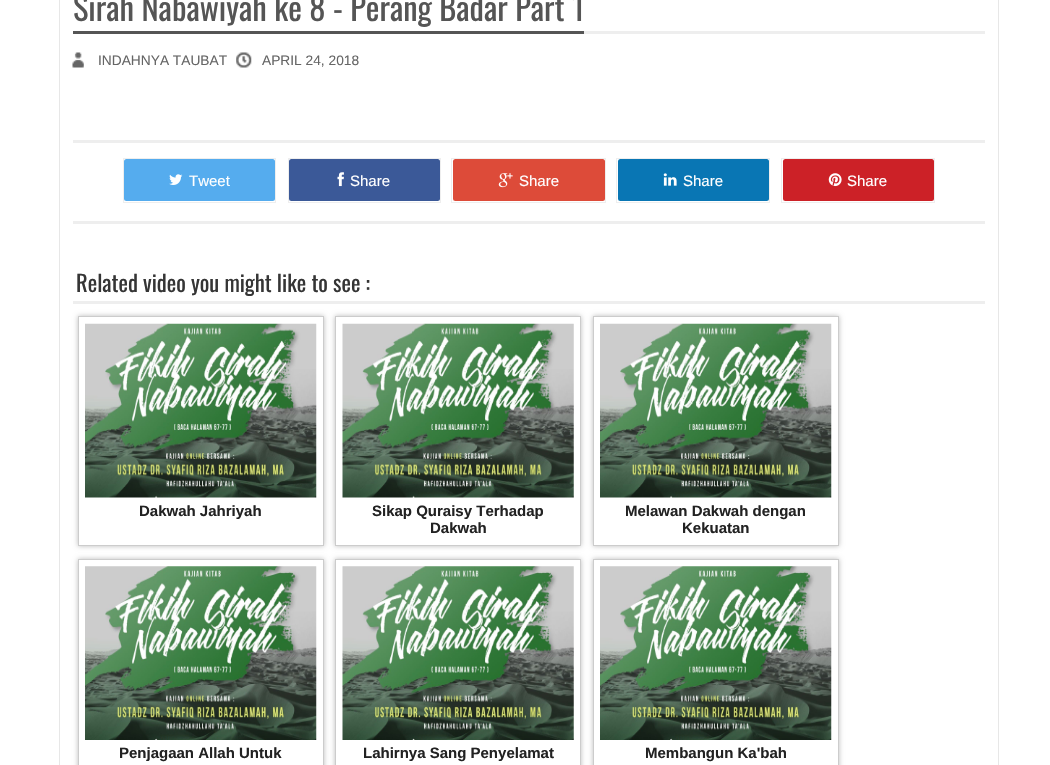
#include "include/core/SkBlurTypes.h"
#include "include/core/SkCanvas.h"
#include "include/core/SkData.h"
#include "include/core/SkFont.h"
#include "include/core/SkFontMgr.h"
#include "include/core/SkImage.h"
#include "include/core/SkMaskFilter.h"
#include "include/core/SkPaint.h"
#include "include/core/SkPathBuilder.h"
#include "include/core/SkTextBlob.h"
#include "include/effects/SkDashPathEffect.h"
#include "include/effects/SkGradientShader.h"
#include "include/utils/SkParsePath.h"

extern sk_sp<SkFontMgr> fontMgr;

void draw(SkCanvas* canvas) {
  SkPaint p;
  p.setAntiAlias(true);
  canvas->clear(SK_ColorWHITE);
  p.setStyle(SkPaint::kStroke_Style);
  p.setStrokeWidth(1);
  p.setColor(SkColorSetRGB(231, 231, 231));
  canvas->drawRect(SkRect::MakeLTRB(59.5f, -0.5f, 998.5f, 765.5f), p);
  p.setStyle(SkPaint::kFill_Style);
  p.setColor(SkColorSetRGB(238, 238, 238));
  canvas->drawRect(SkRect::MakeLTRB(584, 31, 985, 34), p);
  p.setColor(SkColorSetRGB(85, 85, 85));
  canvas->drawRect(SkRect::MakeLTRB(73, 31, 584, 34), p);
  canvas->drawImageRect(SkImages::DeferredFromEncodedData(SkData::MakeFromFileName("images/1.png")), SkRect::MakeLTRB(72, 52, 84, 68), SkSamplingOptions());
  canvas->drawImageRect(SkImages::DeferredFromEncodedData(SkData::MakeFromFileName("images/2.png")), SkRect::MakeLTRB(236, 52, 252, 68), SkSamplingOptions());
  p.setColor(SkColorSetRGB(238, 238, 238));
  canvas->drawRect(SkRect::MakeLTRB(73, 140, 985, 143), p);
  canvas->drawRect(SkRect::MakeLTRB(73, 221, 985, 224), p);
  p.setStyle(SkPaint::kStroke_Style);
  canvas->drawRect(SkRect::MakeLTRB(123.5f, 158.5f, 275.5f, 202.5f), p);
  p.setStyle(SkPaint::kFill_Style);
  p.setColor(SkColorSetRGB(85, 172, 238));
  canvas->drawRoundRect(SkRect::MakeLTRB(124, 159, 275, 201), 2.5f, 2.5f, p);
  canvas->drawImageRect(SkImages::DeferredFromEncodedData(SkData::MakeFromFileName("images/3.png")), SkRect::MakeLTRB(169, 174, 183, 185), SkSamplingOptions());
  p.setStyle(SkPaint::kStroke_Style);
  p.setColor(SkColorSetRGB(238, 238, 238));
  canvas->drawRect(SkRect::MakeLTRB(288.5f, 158.5f, 440.5f, 202.5f), p);
  p.setStyle(SkPaint::kFill_Style);
  p.setColor(SkColorSetRGB(59, 89, 152));
  canvas->drawRoundRect(SkRect::MakeLTRB(289, 159, 440, 201), 2.5f, 2.5f, p);
  canvas->drawImageRect(SkImages::DeferredFromEncodedData(SkData::MakeFromFileName("images/4.png")), SkRect::MakeLTRB(337, 172, 344, 187), SkSamplingOptions());
  p.setStyle(SkPaint::kStroke_Style);
  p.setColor(SkColorSetRGB(238, 238, 238));
  canvas->drawRect(SkRect::MakeLTRB(451.5f, 158.5f, 605.5f, 202.5f), p);
  p.setStyle(SkPaint::kFill_Style);
  p.setColor(SkColorSetRGB(221, 75, 57));
  canvas->drawRoundRect(SkRect::MakeLTRB(453, 159, 605, 201), 2.5f, 2.5f, p);
  canvas->drawImageRect(SkImages::DeferredFromEncodedData(SkData::MakeFromFileName("images/5.png")), SkRect::MakeLTRB(498, 173, 513, 188), SkSamplingOptions());
  p.setStyle(SkPaint::kStroke_Style);
  p.setColor(SkColorSetRGB(238, 238, 238));
  canvas->drawRect(SkRect::MakeLTRB(616.5f, 158.5f, 769.5f, 202.5f), p);
  p.setStyle(SkPaint::kFill_Style);
  p.setColor(SkColorSetRGB(9, 118, 180));
  canvas->drawRoundRect(SkRect::MakeLTRB(618, 159, 769, 201), 2.5f, 2.5f, p);
  canvas->drawImageRect(SkImages::DeferredFromEncodedData(SkData::MakeFromFileName("images/6.png")), SkRect::MakeLTRB(663, 173, 677, 186), SkSamplingOptions());
  p.setStyle(SkPaint::kStroke_Style);
  p.setColor(SkColorSetRGB(238, 238, 238));
  canvas->drawRect(SkRect::MakeLTRB(781.5f, 158.5f, 934.5f, 202.5f), p);
  p.setStyle(SkPaint::kFill_Style);
  p.setColor(SkColorSetRGB(204, 33, 39));
  canvas->drawRoundRect(SkRect::MakeLTRB(783, 159, 934, 201), 2.5f, 2.5f, p);
  canvas->drawImageRect(SkImages::DeferredFromEncodedData(SkData::MakeFromFileName("images/7.png")), SkRect::MakeLTRB(828, 173, 842, 187), SkSamplingOptions());
  p.setColor(SkColorSetRGB(238, 238, 238));
  canvas->drawRect(SkRect::MakeLTRB(73, 301, 985, 304), p);
  canvas->save();
  canvas->clipPath(SkPathBuilder(SkPathFillType::kEvenOdd).moveTo(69, 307).lineTo(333, 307).lineTo(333, 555).lineTo(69, 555).close().moveTo(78, 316).lineTo(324, 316).lineTo(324, 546).lineTo(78, 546).close().detach(), true);
  p.setColor(SkColorSetRGB(187, 187, 187));
  p.setMaskFilter(SkMaskFilter::MakeBlur(kNormal_SkBlurStyle, 2.5f));
  canvas->drawRect(SkRect::MakeLTRB(78, 316, 324, 546), p);
  p.setMaskFilter(nullptr);
  canvas->restore();
  p.setStyle(SkPaint::kStroke_Style);
  p.setColor(SkColorSetRGB(204, 204, 204));
  canvas->drawRect(SkRect::MakeLTRB(78.5f, 316.5f, 323.5f, 545.5f), p);
  canvas->drawImageRect(SkImages::DeferredFromEncodedData(SkData::MakeFromFileName("images/8.png")), SkRect::MakeLTRB(85, 323, 317, 498), SkSamplingOptions());
  canvas->save();
  canvas->clipPath(SkPathBuilder(SkPathFillType::kEvenOdd).moveTo(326, 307).lineTo(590, 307).lineTo(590, 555).lineTo(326, 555).close().moveTo(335, 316).lineTo(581, 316).lineTo(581, 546).lineTo(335, 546).close().detach(), true);
  p.setStyle(SkPaint::kFill_Style);
  p.setColor(SkColorSetRGB(187, 187, 187));
  p.setMaskFilter(SkMaskFilter::MakeBlur(kNormal_SkBlurStyle, 2.5f));
  canvas->drawRect(SkRect::MakeLTRB(335, 316, 581, 546), p);
  p.setMaskFilter(nullptr);
  canvas->restore();
  p.setStyle(SkPaint::kStroke_Style);
  p.setColor(SkColorSetRGB(204, 204, 204));
  canvas->drawRect(SkRect::MakeLTRB(335.5f, 316.5f, 580.5f, 545.5f), p);
  canvas->drawImageRect(SkImages::DeferredFromEncodedData(SkData::MakeFromFileName("images/9.png")), SkRect::MakeLTRB(342, 323, 574, 498), SkSamplingOptions());
  canvas->save();
  canvas->clipPath(SkPathBuilder(SkPathFillType::kEvenOdd).moveTo(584, 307).lineTo(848, 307).lineTo(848, 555).lineTo(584, 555).close().moveTo(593, 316).lineTo(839, 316).lineTo(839, 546).lineTo(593, 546).close().detach(), true);
  p.setStyle(SkPaint::kFill_Style);
  p.setColor(SkColorSetRGB(187, 187, 187));
  p.setMaskFilter(SkMaskFilter::MakeBlur(kNormal_SkBlurStyle, 2.5f));
  canvas->drawRect(SkRect::MakeLTRB(593, 316, 839, 546), p);
  p.setMaskFilter(nullptr);
  canvas->restore();
  p.setStyle(SkPaint::kStroke_Style);
  p.setColor(SkColorSetRGB(204, 204, 204));
  canvas->drawRect(SkRect::MakeLTRB(593.5f, 316.5f, 838.5f, 545.5f), p);
  canvas->drawImageRect(SkImages::DeferredFromEncodedData(SkData::MakeFromFileName("images/8.png")), SkRect::MakeLTRB(600, 323, 832, 498), SkSamplingOptions());
  canvas->save();
  canvas->clipPath(SkPathBuilder(SkPathFillType::kEvenOdd).moveTo(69, 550).lineTo(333, 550).lineTo(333, 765).lineTo(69, 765).close().moveTo(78, 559).lineTo(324, 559).lineTo(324, 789).lineTo(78, 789).close().detach(), true);
  p.setStyle(SkPaint::kFill_Style);
  p.setColor(SkColorSetRGB(187, 187, 187));
  p.setMaskFilter(SkMaskFilter::MakeBlur(kNormal_SkBlurStyle, 2.5f));
  canvas->drawRect(SkRect::MakeLTRB(78, 559, 324, 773), p);
  p.setMaskFilter(nullptr);
  canvas->restore();
  p.setStyle(SkPaint::kStroke_Style);
  p.setColor(SkColorSetRGB(204, 204, 204));
  canvas->drawRect(SkRect::MakeLTRB(78.5f, 559.5f, 323.5f, 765.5f), p);
  canvas->drawImageRect(SkImages::DeferredFromEncodedData(SkData::MakeFromFileName("images/10.png")), SkRect::MakeLTRB(85, 566, 317, 740), SkSamplingOptions());
  canvas->save();
  canvas->clipPath(SkPathBuilder(SkPathFillType::kEvenOdd).moveTo(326, 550).lineTo(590, 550).lineTo(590, 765).lineTo(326, 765).close().moveTo(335, 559).lineTo(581, 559).lineTo(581, 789).lineTo(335, 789).close().detach(), true);
  p.setStyle(SkPaint::kFill_Style);
  p.setColor(SkColorSetRGB(187, 187, 187));
  p.setMaskFilter(SkMaskFilter::MakeBlur(kNormal_SkBlurStyle, 2.5f));
  canvas->drawRect(SkRect::MakeLTRB(335, 559, 581, 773), p);
  p.setMaskFilter(nullptr);
  canvas->restore();
  p.setStyle(SkPaint::kStroke_Style);
  p.setColor(SkColorSetRGB(204, 204, 204));
  canvas->drawRect(SkRect::MakeLTRB(335.5f, 559.5f, 580.5f, 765.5f), p);
  canvas->drawImageRect(SkImages::DeferredFromEncodedData(SkData::MakeFromFileName("images/11.png")), SkRect::MakeLTRB(342, 566, 574, 740), SkSamplingOptions());
  canvas->save();
  canvas->clipPath(SkPathBuilder(SkPathFillType::kEvenOdd).moveTo(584, 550).lineTo(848, 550).lineTo(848, 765).lineTo(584, 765).close().moveTo(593, 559).lineTo(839, 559).lineTo(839, 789).lineTo(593, 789).close().detach(), true);
  p.setStyle(SkPaint::kFill_Style);
  p.setColor(SkColorSetRGB(187, 187, 187));
  p.setMaskFilter(SkMaskFilter::MakeBlur(kNormal_SkBlurStyle, 2.5f));
  canvas->drawRect(SkRect::MakeLTRB(593, 559, 839, 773), p);
  p.setMaskFilter(nullptr);
  canvas->restore();
  p.setStyle(SkPaint::kStroke_Style);
  p.setColor(SkColorSetRGB(204, 204, 204));
  canvas->drawRect(SkRect::MakeLTRB(593.5f, 559.5f, 838.5f, 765.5f), p);
  canvas->drawImageRect(SkImages::DeferredFromEncodedData(SkData::MakeFromFileName("images/10.png")), SkRect::MakeLTRB(600, 566, 832, 740), SkSamplingOptions());
  SkFont font1(fontMgr->matchFamilyStyle("Oswald", SkFontStyle::Normal()), 32.5f);
  font1.setSubpixel(true);
  p.setStyle(SkPaint::kFill_Style);
  p.setColor(SkColorSetRGB(85, 85, 85));
  canvas->drawString("Sirah Nabawiyah ke 8 - Perang Badar Part 1", 73, 21, font1, p);
  SkFont font2(fontMgr->matchFamilyStyle("Liberation Sans", SkFontStyle::Normal()), 13.75f);
  font2.setSubpixel(true);
  p.setColor(SkColorSetRGB(102, 102, 102));
  canvas->drawString("INDAHNYA TAUBAT", 98, 65, font2, p);
  canvas->drawString("APRIL 24, 2018", 262, 65, font2, p);
  SkFont font3(fontMgr->matchFamilyStyle("Liberation Sans", SkFontStyle::Normal()), 15);
  font3.setSubpixel(true);
  p.setColor(SK_ColorWHITE);
  canvas->drawString("Tweet", 189, 186, font3, p);
  canvas->drawString("Share", 350, 186, font3, p);
  canvas->drawString("Share", 519, 186, font3, p);
  canvas->drawString("Share", 683, 186, font3, p);
  canvas->drawString("Share", 847, 186, font3, p);
  SkFont font4(fontMgr->matchFamilyStyle("Oswald", SkFontStyle::Normal()), 22.5f);
  font4.setSubpixel(true);
  p.setColor(SkColorSetRGB(53, 53, 53));
  canvas->drawString("Related video you might like to see :", 76, 292, font4, p);
  SkFont font5(fontMgr->matchFamilyStyle("Liberation Sans", SkFontStyle::Bold()), 15);
  font5.setSubpixel(true);
  p.setColor(SkColorSetRGB(34, 34, 34));
  canvas->drawString("Dakwah Jahriyah", 139, 516, font5, p);
  canvas->drawString("Sikap Quraisy Terhadap", 372, 516, font5, p);
  canvas->drawString("Dakwah", 430, 533, font5, p);
  canvas->drawString("Melawan Dakwah dengan", 625, 516, font5, p);
  canvas->drawString("Kekuatan", 682, 533, font5, p);
  canvas->drawString("Penjagaan Allah Untuk", 119, 758, font5, p);
  canvas->drawString("Lahirnya Sang Penyelamat", 363, 758, font5, p);
  canvas->drawString("Membangun Ka'bah", 645, 758, font5, p);
}
